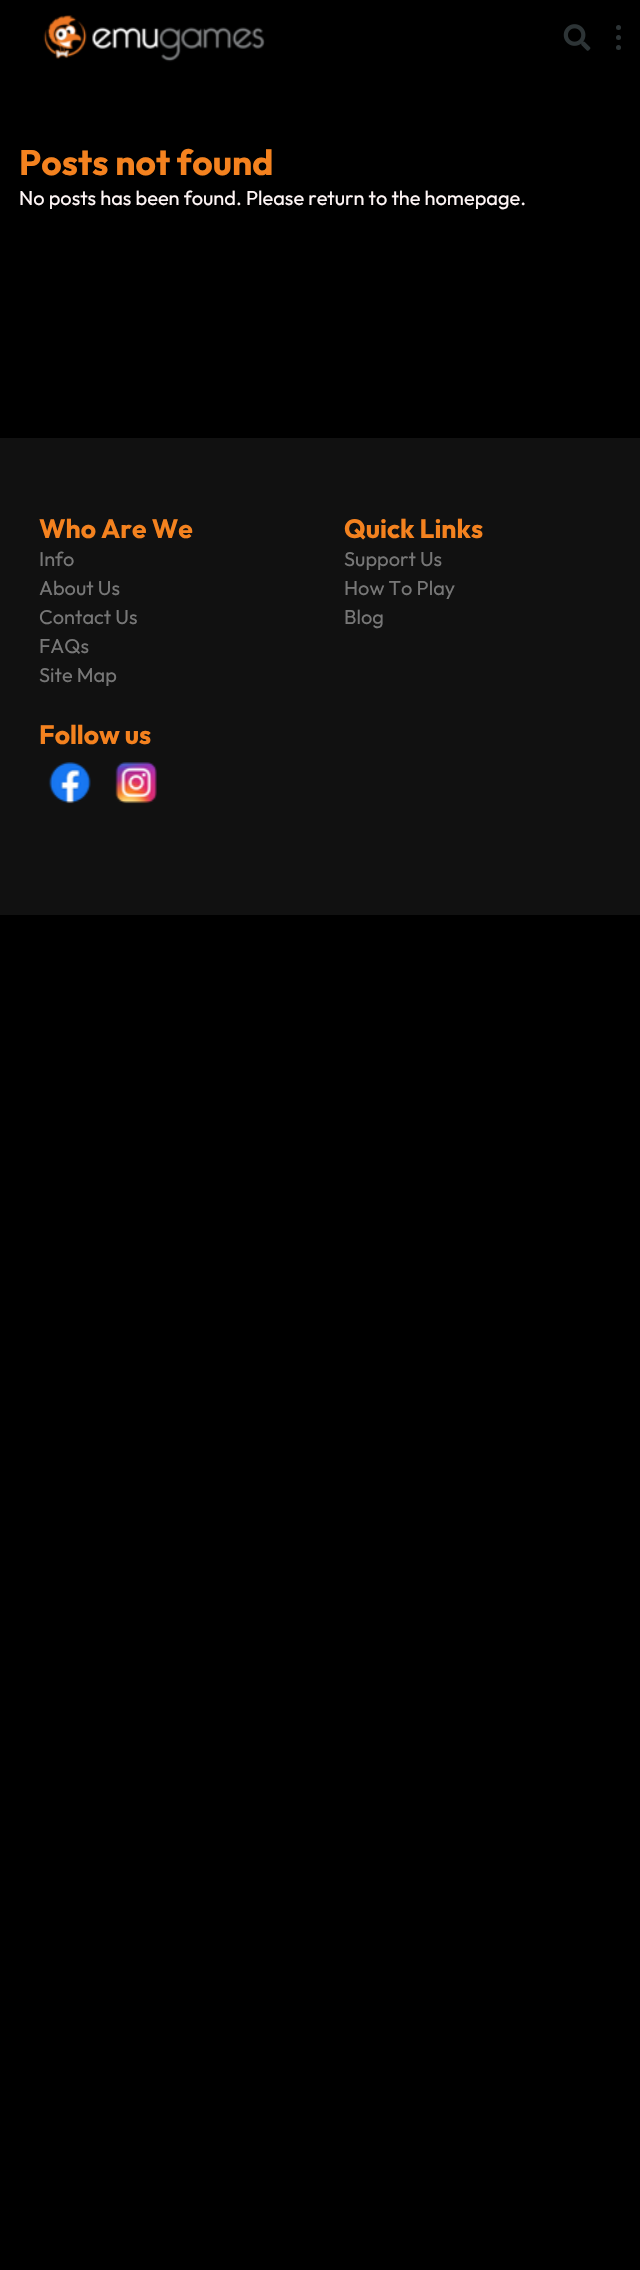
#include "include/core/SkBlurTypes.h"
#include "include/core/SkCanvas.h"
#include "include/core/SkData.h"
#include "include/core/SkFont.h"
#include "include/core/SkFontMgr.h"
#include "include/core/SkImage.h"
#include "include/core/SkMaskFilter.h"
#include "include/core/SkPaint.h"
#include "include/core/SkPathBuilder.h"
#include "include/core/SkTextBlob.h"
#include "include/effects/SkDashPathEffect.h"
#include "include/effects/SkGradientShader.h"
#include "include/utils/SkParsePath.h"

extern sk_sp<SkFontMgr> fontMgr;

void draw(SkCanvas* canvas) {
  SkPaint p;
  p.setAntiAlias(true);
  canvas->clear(SK_ColorBLACK);
  canvas->drawImageRect(SkImages::DeferredFromEncodedData(SkData::MakeFromFileName("images/1.png")), SkRect::MakeLTRB(43, 15, 265, 62), SkSamplingOptions());
  canvas->drawImageRect(SkImages::DeferredFromEncodedData(SkData::MakeFromFileName("images/2.png")), SkRect::MakeLTRB(563, 24, 591, 51), SkSamplingOptions());
  p.setColor(SkColorSetRGB(45, 52, 54));
  canvas->drawCircle(618.5f, 27.5f, 2.5f, p);
  canvas->drawCircle(618.5f, 37.5f, 2.5f, p);
  canvas->drawCircle(618.5f, 47.5f, 2.5f, p);
  p.setColor(SkColorSetRGB(17, 17, 17));
  canvas->drawRect(SkRect::MakeLTRB(0, 438, 640, 915), p);
  canvas->drawImageRect(SkImages::DeferredFromEncodedData(SkData::MakeFromFileName("images/3.png")), SkRect::MakeLTRB(48, 762, 91, 804), SkSamplingOptions());
  canvas->drawImageRect(SkImages::DeferredFromEncodedData(SkData::MakeFromFileName("images/4.png")), SkRect::MakeLTRB(115, 762, 157, 804), SkSamplingOptions());
  SkFont font1(fontMgr->matchFamilyStyle("Outfit", SkFontStyle::Bold()), 35.5f);
  font1.setSubpixel(true);
  p.setColor(SkColorSetRGB(244, 130, 31));
  canvas->drawString("Posts not found", 19, 175, font1, p);
  SkFont font2(fontMgr->matchFamilyStyle("Outfit", SkFontStyle::Normal()), 20);
  font2.setSubpixel(true);
  p.setColor(SkColorSetRGB(255, 246, 246));
  canvas->drawString("No posts has been found. Please return to the homepage.", 19, 205, font2, p);
  SkFont font3(fontMgr->matchFamilyStyle("Outfit", SkFontStyle::Bold()), 26.5f);
  font3.setSubpixel(true);
  p.setColor(SkColorSetRGB(244, 130, 31));
  canvas->drawString("Who Are We", 39, 538, font3, p);
  p.setColor(SkColorSetRGB(119, 119, 119));
  canvas->drawString("Info", 39, 566, font2, p);
  canvas->drawString("About Us", 39, 595, font2, p);
  canvas->drawString("Contact Us", 39, 624, font2, p);
  canvas->drawString("FAQs", 39, 653, font2, p);
  canvas->drawString("Site Map", 39, 682, font2, p);
  p.setColor(SkColorSetRGB(244, 130, 31));
  canvas->drawString("Quick Links", 344, 538, font3, p);
  p.setColor(SkColorSetRGB(119, 119, 119));
  canvas->drawString("Support Us", 344, 566, font2, p);
  canvas->drawString("How To Play", 344, 595, font2, p);
  canvas->drawString("Blog", 344, 624, font2, p);
  p.setColor(SkColorSetRGB(244, 130, 31));
  canvas->drawString("Follow us", 39, 744, font3, p);
}
